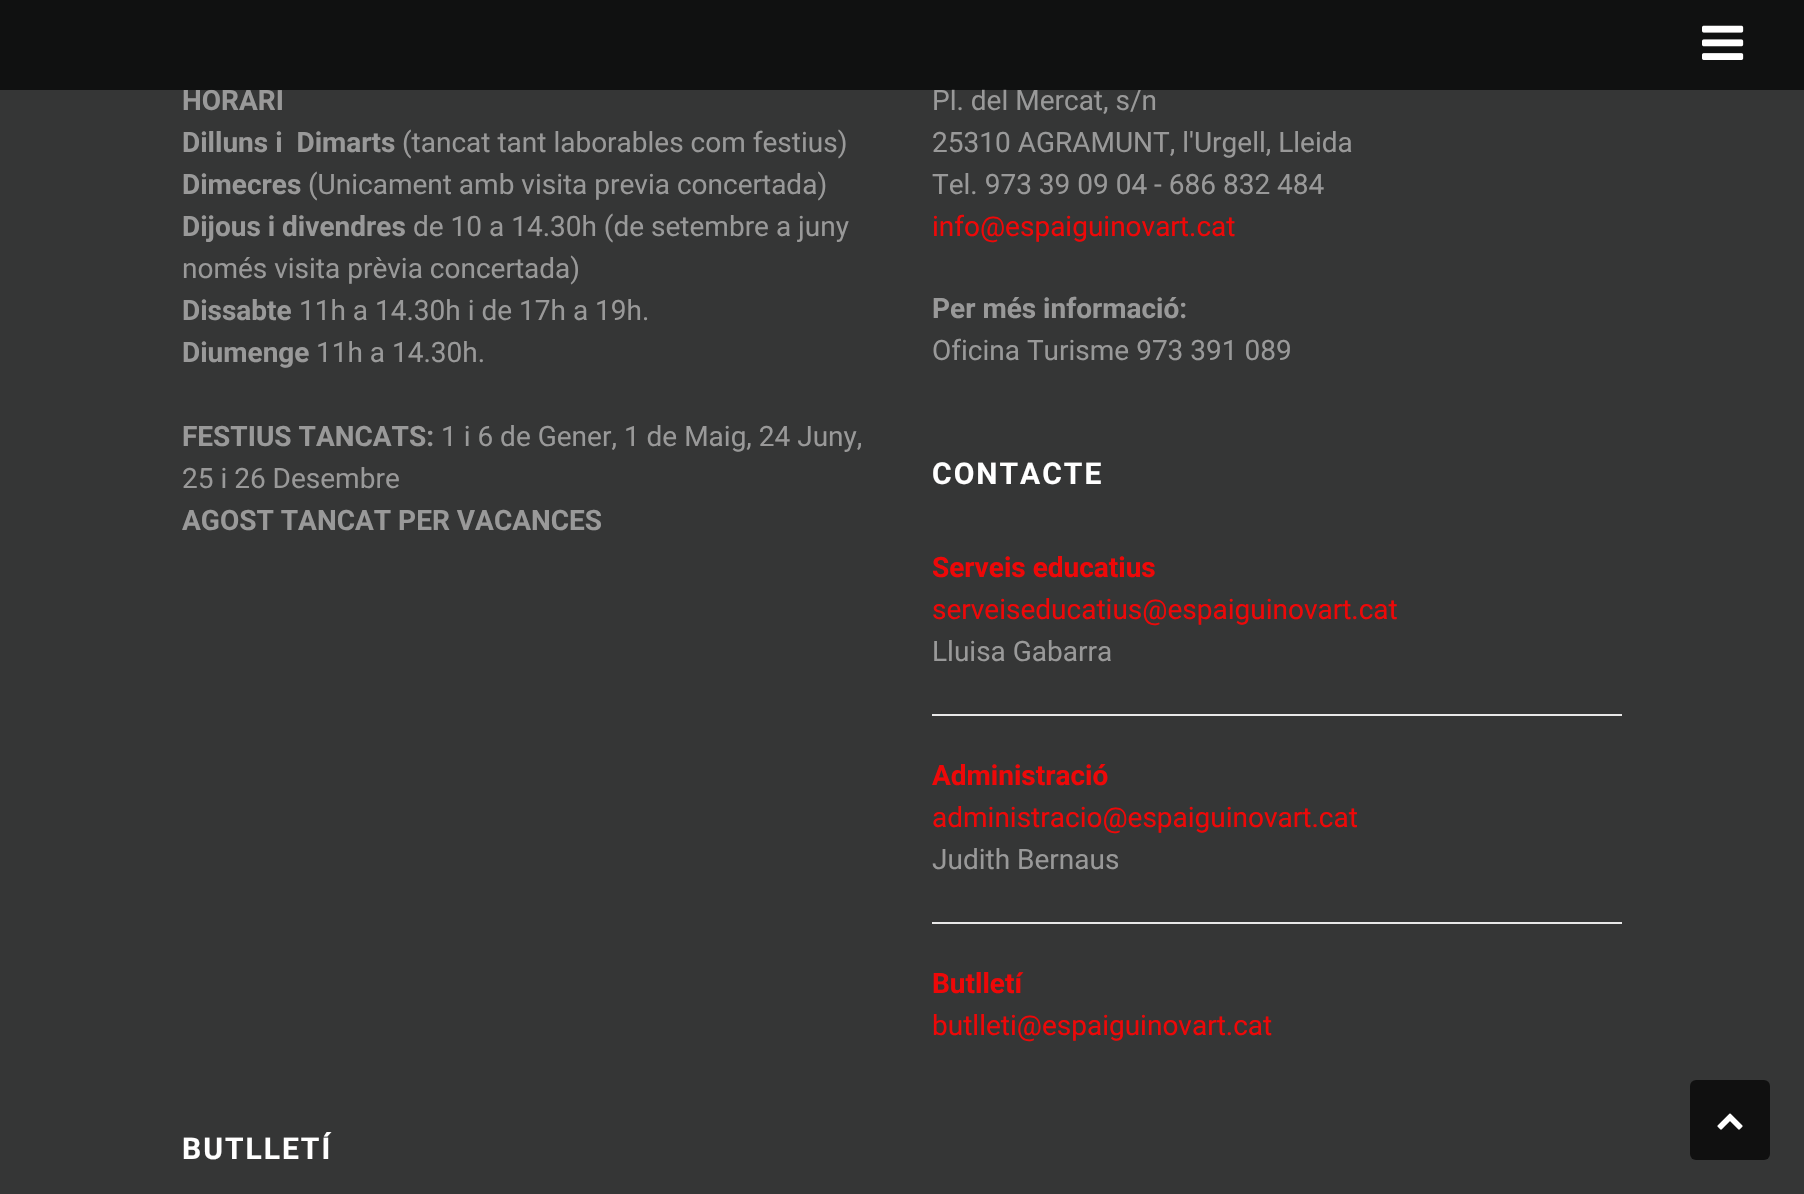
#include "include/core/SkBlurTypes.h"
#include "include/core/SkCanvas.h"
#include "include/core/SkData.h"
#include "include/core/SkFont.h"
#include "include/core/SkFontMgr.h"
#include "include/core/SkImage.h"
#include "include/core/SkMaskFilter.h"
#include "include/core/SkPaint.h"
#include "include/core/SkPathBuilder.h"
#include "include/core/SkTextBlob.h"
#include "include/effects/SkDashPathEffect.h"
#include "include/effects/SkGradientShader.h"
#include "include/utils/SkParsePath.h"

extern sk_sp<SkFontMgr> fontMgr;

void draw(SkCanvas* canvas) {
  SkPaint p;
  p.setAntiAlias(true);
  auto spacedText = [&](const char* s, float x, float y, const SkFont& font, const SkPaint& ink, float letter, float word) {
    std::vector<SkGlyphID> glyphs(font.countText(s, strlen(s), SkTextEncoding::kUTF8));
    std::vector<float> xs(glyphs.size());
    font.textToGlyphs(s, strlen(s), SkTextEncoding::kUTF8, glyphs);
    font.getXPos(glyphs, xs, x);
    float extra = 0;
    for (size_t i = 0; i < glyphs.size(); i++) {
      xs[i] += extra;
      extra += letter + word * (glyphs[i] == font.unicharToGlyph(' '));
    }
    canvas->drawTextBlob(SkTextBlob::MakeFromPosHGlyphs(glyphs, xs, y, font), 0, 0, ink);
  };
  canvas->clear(SkColorSetRGB(53, 54, 54));
  p.setColor(SkColorSetRGB(232, 232, 232));
  canvas->drawRect(SkRect::MakeLTRB(932, 714, 1622, 716), p);
  canvas->drawRect(SkRect::MakeLTRB(932, 922, 1622, 924), p);
  p.setColor(SkColorSetRGB(16, 16, 16));
  canvas->drawRoundRect(SkRect::MakeLTRB(1690, 1080, 1770, 1160), 6, 6, p);
  canvas->drawImageRect(SkImages::DeferredFromEncodedData(SkData::MakeFromFileName("images/2.png")), SkRect::MakeLTRB(1717, 1113, 1743, 1130), SkSamplingOptions());
  SkFont font1(fontMgr->matchFamilyStyle("Roboto", SkFontStyle::Bold()), 28);
  font1.setSubpixel(true);
  p.setColor(SkColorSetRGB(153, 153, 153));
  canvas->drawString("HORARI", 182, 110, font1, p);
  canvas->drawString("Dilluns i  Dimarts", 182, 152, font1, p);
  SkFont font2(fontMgr->matchFamilyStyle("Roboto", SkFontStyle::Normal()), 28);
  font2.setSubpixel(true);
  canvas->drawString("(tancat tant laborables com festius)", 402, 152, font2, p);
  canvas->drawString("Dimecres", 182, 194, font1, p);
  canvas->drawString("(Unicament amb visita previa concertada)", 308, 194, font2, p);
  canvas->drawString("Dijous i divendres", 182, 236, font1, p);
  canvas->drawString("de 10 a 14.30h (de setembre a juny", 413, 236, font2, p);
  canvas->drawString("només visita prèvia concertada)", 182, 278, font2, p);
  canvas->drawString("Dissabte", 182, 320, font1, p);
  canvas->drawString("11h a 14.30h i de 17h a 19h.", 299, 320, font2, p);
  canvas->drawString("Diumenge", 182, 362, font1, p);
  canvas->drawString("11h a 14.30h.", 316, 362, font2, p);
  canvas->drawString("FESTIUS TANCATS:", 182, 446, font1, p);
  canvas->drawString("1 i 6 de Gener, 1 de Maig, 24 Juny,", 441, 446, font2, p);
  canvas->drawString("25 i 26 Desembre", 182, 488, font2, p);
  canvas->drawString("AGOST TANCAT PER VACANCES", 182, 530, font1, p);
  canvas->drawString("Pl. del Mercat, s/n", 932, 110, font2, p);
  p.setColor(SkColorSetARGB(179, 0, 0, 0));
  canvas->drawRect(SkRect::MakeLTRB(0, 0, 1804, 90), p);
  canvas->drawImageRect(SkImages::DeferredFromEncodedData(SkData::MakeFromFileName("images/1.png")), SkRect::MakeLTRB(1702, 25, 1744, 60), SkSamplingOptions());
  p.setColor(SkColorSetRGB(153, 153, 153));
  canvas->drawString("25310 AGRAMUNT, l'Urgell, Lleida", 932, 152, font2, p);
  canvas->drawString("Tel. 973 39 09 04 - 686 832 484", 932, 194, font2, p);
  p.setColor(SkColorSetRGB(238, 8, 8));
  canvas->drawString("info@espaiguinovart.cat", 932, 236, font2, p);
  p.setColor(SkColorSetRGB(153, 153, 153));
  canvas->drawString("Per més informació:", 932, 318, font1, p);
  canvas->drawString("Oficina Turisme 973 391 089", 932, 360, font2, p);
  SkFont font3(fontMgr->matchFamilyStyle("Roboto", SkFontStyle::Bold()), 30);
  font3.setSubpixel(true);
  p.setColor(SK_ColorWHITE);
  spacedText("CONTACTE", 932, 484, font3, p, 2, 0);
  p.setColor(SkColorSetRGB(238, 8, 8));
  canvas->drawString("Serveis educatius", 932, 577, font1, p);
  canvas->drawString("serveiseducatius@espaiguinovart.cat", 932, 619, font2, p);
  p.setColor(SkColorSetRGB(153, 153, 153));
  canvas->drawString("Lluisa Gabarra", 932, 661, font2, p);
  p.setColor(SkColorSetRGB(238, 8, 8));
  canvas->drawString("Administració", 932, 785, font1, p);
  canvas->drawString("administracio@espaiguinovart.cat", 932, 827, font2, p);
  p.setColor(SkColorSetRGB(153, 153, 153));
  canvas->drawString("Judith Bernaus", 932, 869, font2, p);
  p.setColor(SkColorSetRGB(238, 8, 8));
  canvas->drawString("Butlletí", 932, 993, font1, p);
  canvas->drawString("butlleti@espaiguinovart.cat", 932, 1035, font2, p);
  p.setColor(SK_ColorWHITE);
  spacedText("BUTLLETÍ", 182, 1159, font3, p, 2, 0);
}
